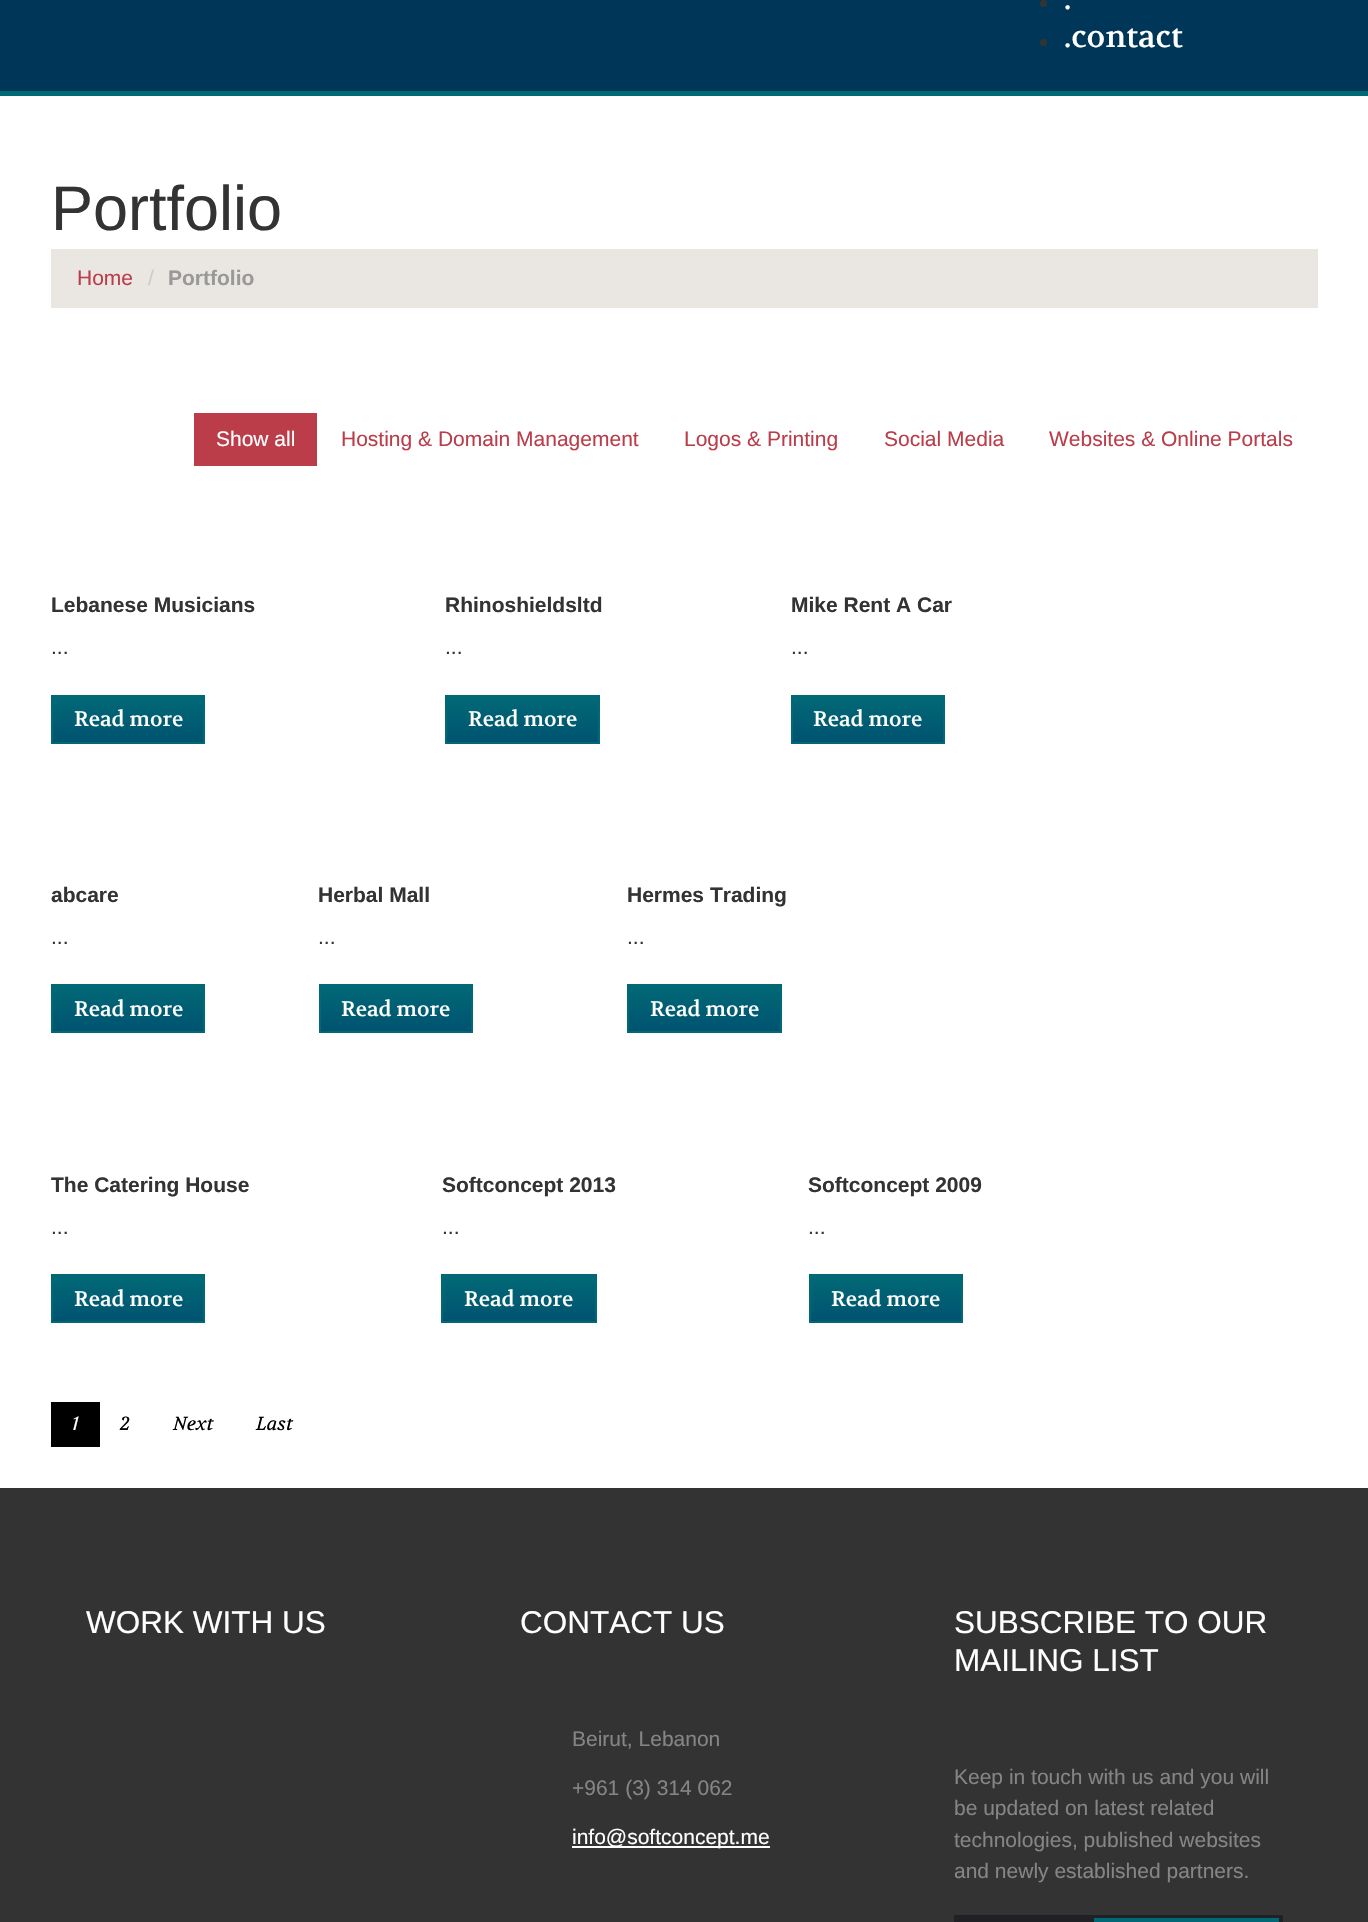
#include "include/core/SkBlurTypes.h"
#include "include/core/SkCanvas.h"
#include "include/core/SkData.h"
#include "include/core/SkFont.h"
#include "include/core/SkFontMgr.h"
#include "include/core/SkImage.h"
#include "include/core/SkMaskFilter.h"
#include "include/core/SkPaint.h"
#include "include/core/SkPathBuilder.h"
#include "include/core/SkTextBlob.h"
#include "include/effects/SkDashPathEffect.h"
#include "include/effects/SkGradientShader.h"
#include "include/utils/SkParsePath.h"

extern sk_sp<SkFontMgr> fontMgr;

void draw(SkCanvas* canvas) {
  SkPaint p;
  p.setAntiAlias(true);
  canvas->clear(SkColorSetRGB(51, 51, 51));
  p.setColor(SkColorSetRGB(0, 54, 88));
  canvas->drawRect(SkRect::MakeLTRB(0, 0, 1368, 91), p);
  p.setColor(SkColorSetRGB(1, 105, 118));
  canvas->drawRect(SkRect::MakeLTRB(0, 91, 1368, 96), p);
  p.setColor(SkColorSetRGB(51, 51, 51));
  canvas->drawCircle(1043.5f, 3.5f, 3.5f, p);
  canvas->drawCircle(1043.5f, 42.5f, 3.5f, p);
  p.setColor(SK_ColorWHITE);
  canvas->drawRect(SkRect::MakeLTRB(0, 96, 1368, 1488), p);
  p.setColor(SkColorSetRGB(234, 231, 227));
  canvas->drawRect(SkRect::MakeLTRB(51, 249, 1318, 308), p);
  p.setColor(SkColorSetRGB(186, 61, 73));
  canvas->drawRect(SkRect::MakeLTRB(194, 413, 317, 466), p);
  {
    const SkColor colors[] = {SkColorSetRGB(1, 105, 118), SkColorSetRGB(0, 83, 112)};
    const float stops[] = {0, 1};
    const SkPoint ends[] = {{128, 697}, {128, 742}};
    p.setShader(SkGradientShader::MakeLinear(ends, colors, stops, 2, SkTileMode::kClamp));
    p.setAlpha(255);
  }
  canvas->drawRect(SkRect::MakeLTRB(53, 697, 203, 742), p);
  p.setStyle(SkPaint::kStroke_Style);
  p.setStrokeWidth(2);
  p.setShader(nullptr);
  p.setColor(SkColorSetRGB(1, 105, 118));
  canvas->drawRect(SkRect::MakeLTRB(52, 696, 204, 743), p);
  p.setStyle(SkPaint::kFill_Style);
  {
    const SkColor colors[] = {SkColorSetRGB(1, 105, 118), SkColorSetRGB(0, 83, 112)};
    const float stops[] = {0, 1};
    const SkPoint ends[] = {{522, 697}, {522, 742}};
    p.setShader(SkGradientShader::MakeLinear(ends, colors, stops, 2, SkTileMode::kClamp));
    p.setAlpha(255);
  }
  canvas->drawRect(SkRect::MakeLTRB(447, 697, 598, 742), p);
  p.setStyle(SkPaint::kStroke_Style);
  p.setShader(nullptr);
  p.setColor(SkColorSetRGB(1, 105, 118));
  canvas->drawRect(SkRect::MakeLTRB(446, 696, 599, 743), p);
  p.setStyle(SkPaint::kFill_Style);
  {
    const SkColor colors[] = {SkColorSetRGB(1, 105, 118), SkColorSetRGB(0, 83, 112)};
    const float stops[] = {0, 1};
    const SkPoint ends[] = {{868, 697}, {868, 742}};
    p.setShader(SkGradientShader::MakeLinear(ends, colors, stops, 2, SkTileMode::kClamp));
    p.setAlpha(255);
  }
  canvas->drawRect(SkRect::MakeLTRB(793, 697, 943, 742), p);
  p.setStyle(SkPaint::kStroke_Style);
  p.setShader(nullptr);
  p.setColor(SkColorSetRGB(1, 105, 118));
  canvas->drawRect(SkRect::MakeLTRB(792, 696, 944, 743), p);
  p.setStyle(SkPaint::kFill_Style);
  {
    const SkColor colors[] = {SkColorSetRGB(1, 105, 118), SkColorSetRGB(0, 83, 112)};
    const float stops[] = {0, 1};
    const SkPoint ends[] = {{128, 985}, {128, 1031}};
    p.setShader(SkGradientShader::MakeLinear(ends, colors, stops, 2, SkTileMode::kClamp));
    p.setAlpha(255);
  }
  canvas->drawRect(SkRect::MakeLTRB(53, 986, 203, 1031), p);
  p.setStyle(SkPaint::kStroke_Style);
  p.setShader(nullptr);
  p.setColor(SkColorSetRGB(1, 105, 118));
  canvas->drawRect(SkRect::MakeLTRB(52, 985, 204, 1032), p);
  p.setStyle(SkPaint::kFill_Style);
  {
    const SkColor colors[] = {SkColorSetRGB(1, 105, 118), SkColorSetRGB(0, 83, 112)};
    const float stops[] = {0, 1};
    const SkPoint ends[] = {{396, 985}, {396, 1031}};
    p.setShader(SkGradientShader::MakeLinear(ends, colors, stops, 2, SkTileMode::kClamp));
    p.setAlpha(255);
  }
  canvas->drawRect(SkRect::MakeLTRB(321, 986, 471, 1031), p);
  p.setStyle(SkPaint::kStroke_Style);
  p.setShader(nullptr);
  p.setColor(SkColorSetRGB(1, 105, 118));
  canvas->drawRect(SkRect::MakeLTRB(320, 985, 472, 1032), p);
  p.setStyle(SkPaint::kFill_Style);
  {
    const SkColor colors[] = {SkColorSetRGB(1, 105, 118), SkColorSetRGB(0, 83, 112)};
    const float stops[] = {0, 1};
    const SkPoint ends[] = {{704, 985}, {704, 1031}};
    p.setShader(SkGradientShader::MakeLinear(ends, colors, stops, 2, SkTileMode::kClamp));
    p.setAlpha(255);
  }
  canvas->drawRect(SkRect::MakeLTRB(629, 986, 780, 1031), p);
  p.setStyle(SkPaint::kStroke_Style);
  p.setShader(nullptr);
  p.setColor(SkColorSetRGB(1, 105, 118));
  canvas->drawRect(SkRect::MakeLTRB(628, 985, 781, 1032), p);
  p.setStyle(SkPaint::kFill_Style);
  {
    const SkColor colors[] = {SkColorSetRGB(1, 105, 118), SkColorSetRGB(0, 83, 112)};
    const float stops[] = {0, 1};
    const SkPoint ends[] = {{128, 1276}, {128, 1321}};
    p.setShader(SkGradientShader::MakeLinear(ends, colors, stops, 2, SkTileMode::kClamp));
    p.setAlpha(255);
  }
  canvas->drawRect(SkRect::MakeLTRB(53, 1276, 203, 1321), p);
  p.setStyle(SkPaint::kStroke_Style);
  p.setShader(nullptr);
  p.setColor(SkColorSetRGB(1, 105, 118));
  canvas->drawRect(SkRect::MakeLTRB(52, 1275, 204, 1322), p);
  p.setStyle(SkPaint::kFill_Style);
  {
    const SkColor colors[] = {SkColorSetRGB(1, 105, 118), SkColorSetRGB(0, 83, 112)};
    const float stops[] = {0, 1};
    const SkPoint ends[] = {{519, 1276}, {519, 1321}};
    p.setShader(SkGradientShader::MakeLinear(ends, colors, stops, 2, SkTileMode::kClamp));
    p.setAlpha(255);
  }
  canvas->drawRect(SkRect::MakeLTRB(443, 1276, 595, 1321), p);
  p.setStyle(SkPaint::kStroke_Style);
  p.setShader(nullptr);
  p.setColor(SkColorSetRGB(1, 105, 118));
  canvas->drawRect(SkRect::MakeLTRB(442, 1275, 596, 1322), p);
  p.setStyle(SkPaint::kFill_Style);
  {
    const SkColor colors[] = {SkColorSetRGB(1, 105, 118), SkColorSetRGB(0, 83, 112)};
    const float stops[] = {0, 1};
    const SkPoint ends[] = {{886, 1276}, {886, 1321}};
    p.setShader(SkGradientShader::MakeLinear(ends, colors, stops, 2, SkTileMode::kClamp));
    p.setAlpha(255);
  }
  canvas->drawRect(SkRect::MakeLTRB(811, 1276, 961, 1321), p);
  p.setStyle(SkPaint::kStroke_Style);
  p.setShader(nullptr);
  p.setColor(SkColorSetRGB(1, 105, 118));
  canvas->drawRect(SkRect::MakeLTRB(810, 1275, 962, 1322), p);
  p.setStyle(SkPaint::kFill_Style);
  p.setColor(SK_ColorBLACK);
  canvas->drawRect(SkRect::MakeLTRB(51, 1402, 100, 1447), p);
  p.setColor(SK_ColorWHITE);
  canvas->drawRect(SkRect::MakeLTRB(572, 1846, 770, 1848), p);
  p.setColor(SkColorSetRGB(31, 33, 36));
  canvas->drawRect(SkRect::MakeLTRB(954, 1915, 1283, 1922), p);
  {
    const SkColor colors[] = {SkColorSetRGB(1, 105, 118), SkColorSetRGB(0, 83, 112)};
    const float stops[] = {0, 1};
    const SkPoint ends[] = {{1187, 1918}, {1187, 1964}};
    p.setShader(SkGradientShader::MakeLinear(ends, colors, stops, 2, SkTileMode::kClamp));
    p.setAlpha(255);
  }
  canvas->drawRect(SkRect::MakeLTRB(1094, 1918, 1279, 1922), p);
  SkFont font1(fontMgr->matchFamilyStyle("Volkhov", SkFontStyle::Normal()), 31.5f);
  font1.setSubpixel(true);
  p.setShader(nullptr);
  p.setColor(SK_ColorWHITE);
  canvas->drawString(".", 1064, 9, font1, p);
  canvas->drawString(".contact", 1064, 47, font1, p);
  SkFont font2(fontMgr->matchFamilyStyle("Liberation Sans", SkFontStyle::Normal()), 63);
  font2.setSubpixel(true);
  p.setColor(SkColorSetRGB(51, 51, 51));
  canvas->drawString("Portfolio", 51, 230, font2, p);
  SkFont font3(fontMgr->matchFamilyStyle("Liberation Sans", SkFontStyle::Normal()), 21);
  font3.setSubpixel(true);
  p.setColor(SkColorSetRGB(186, 61, 73));
  canvas->drawString("Home", 77, 285, font3, p);
  p.setColor(SkColorSetRGB(204, 204, 204));
  canvas->drawString("/", 148, 285, font3, p);
  SkFont font4(fontMgr->matchFamilyStyle("Liberation Sans", SkFontStyle::Bold()), 21);
  font4.setSubpixel(true);
  p.setColor(SkColorSetRGB(153, 153, 153));
  canvas->drawString("Portfolio", 168, 285, font4, p);
  p.setColor(SK_ColorWHITE);
  canvas->drawString("Show all", 216, 446, font3, p);
  p.setColor(SkColorSetRGB(186, 61, 73));
  canvas->drawString("Hosting & Domain Management", 341, 446, font3, p);
  canvas->drawString("Logos & Printing", 684, 446, font3, p);
  canvas->drawString("Social Media", 884, 446, font3, p);
  canvas->drawString("Websites & Online Portals", 1049, 446, font3, p);
  p.setColor(SkColorSetRGB(51, 51, 51));
  canvas->drawString("Lebanese Musicians", 51, 612, font4, p);
  canvas->drawString("...", 51, 654, font3, p);
  SkFont font5(fontMgr->matchFamilyStyle("Volkhov", SkFontStyle::Normal()), 21);
  font5.setSubpixel(true);
  p.setColor(SK_ColorWHITE);
  canvas->drawString("Read more", 74, 726, font5, p);
  p.setColor(SkColorSetRGB(51, 51, 51));
  canvas->drawString("Rhinoshieldsltd", 445, 612, font4, p);
  canvas->drawString("...", 445, 654, font3, p);
  p.setColor(SK_ColorWHITE);
  canvas->drawString("Read more", 468, 726, font5, p);
  p.setColor(SkColorSetRGB(51, 51, 51));
  canvas->drawString("Mike Rent A Car", 791, 612, font4, p);
  canvas->drawString("...", 791, 654, font3, p);
  p.setColor(SK_ColorWHITE);
  canvas->drawString("Read more", 813, 726, font5, p);
  p.setColor(SkColorSetRGB(51, 51, 51));
  canvas->drawString("abcare", 51, 902, font4, p);
  canvas->drawString("...", 51, 944, font3, p);
  p.setColor(SK_ColorWHITE);
  canvas->drawString("Read more", 74, 1016, font5, p);
  p.setColor(SkColorSetRGB(51, 51, 51));
  canvas->drawString("Herbal Mall", 318, 902, font4, p);
  canvas->drawString("...", 318, 944, font3, p);
  p.setColor(SK_ColorWHITE);
  canvas->drawString("Read more", 341, 1016, font5, p);
  p.setColor(SkColorSetRGB(51, 51, 51));
  canvas->drawString("Hermes Trading", 627, 902, font4, p);
  canvas->drawString("...", 627, 944, font3, p);
  p.setColor(SK_ColorWHITE);
  canvas->drawString("Read more", 650, 1016, font5, p);
  p.setColor(SkColorSetRGB(51, 51, 51));
  canvas->drawString("The Catering House", 51, 1192, font4, p);
  canvas->drawString("...", 51, 1234, font3, p);
  p.setColor(SK_ColorWHITE);
  canvas->drawString("Read more", 74, 1306, font5, p);
  p.setColor(SkColorSetRGB(51, 51, 51));
  canvas->drawString("Softconcept 2013", 442, 1192, font4, p);
  canvas->drawString("...", 442, 1234, font3, p);
  p.setColor(SK_ColorWHITE);
  canvas->drawString("Read more", 464, 1306, font5, p);
  p.setColor(SkColorSetRGB(51, 51, 51));
  canvas->drawString("Softconcept 2009", 808, 1192, font4, p);
  canvas->drawString("...", 808, 1234, font3, p);
  p.setColor(SK_ColorWHITE);
  canvas->drawString("Read more", 831, 1306, font5, p);
  SkFont font6(fontMgr->matchFamilyStyle("Volkhov", SkFontStyle::Italic()), 19);
  font6.setSubpixel(true);
  canvas->drawString("1", 72, 1430, font6, p);
  p.setColor(SK_ColorBLACK);
  canvas->drawString("2", 120, 1430, font6, p);
  canvas->drawString("Next", 173, 1430, font6, p);
  canvas->drawString("Last", 256, 1430, font6, p);
  SkFont font7(fontMgr->matchFamilyStyle("Liberation Sans", SkFontStyle::Normal()), 31.5f);
  font7.setSubpixel(true);
  p.setColor(SK_ColorWHITE);
  canvas->drawString("WORK WITH US", 86, 1633, font7, p);
  canvas->drawString("CONTACT US", 520, 1633, font7, p);
  p.setColor(SkColorSetRGB(133, 133, 133));
  canvas->drawString("Beirut, Lebanon", 572, 1746, font3, p);
  canvas->drawString("+961 (3) 314 062", 572, 1795, font3, p);
  p.setColor(SK_ColorWHITE);
  canvas->drawString("info@softconcept.me", 572, 1844, font3, p);
  canvas->drawString("SUBSCRIBE TO OUR", 954, 1633, font7, p);
  canvas->drawString("MAILING LIST", 954, 1671, font7, p);
  p.setColor(SkColorSetRGB(133, 133, 133));
  canvas->drawString("Keep in touch with us and you will", 954, 1784, font3, p);
  canvas->drawString("be updated on latest related", 954, 1815, font3, p);
  canvas->drawString("technologies, published websites", 954, 1847, font3, p);
  canvas->drawString("and newly established partners.", 954, 1878, font3, p);
}
